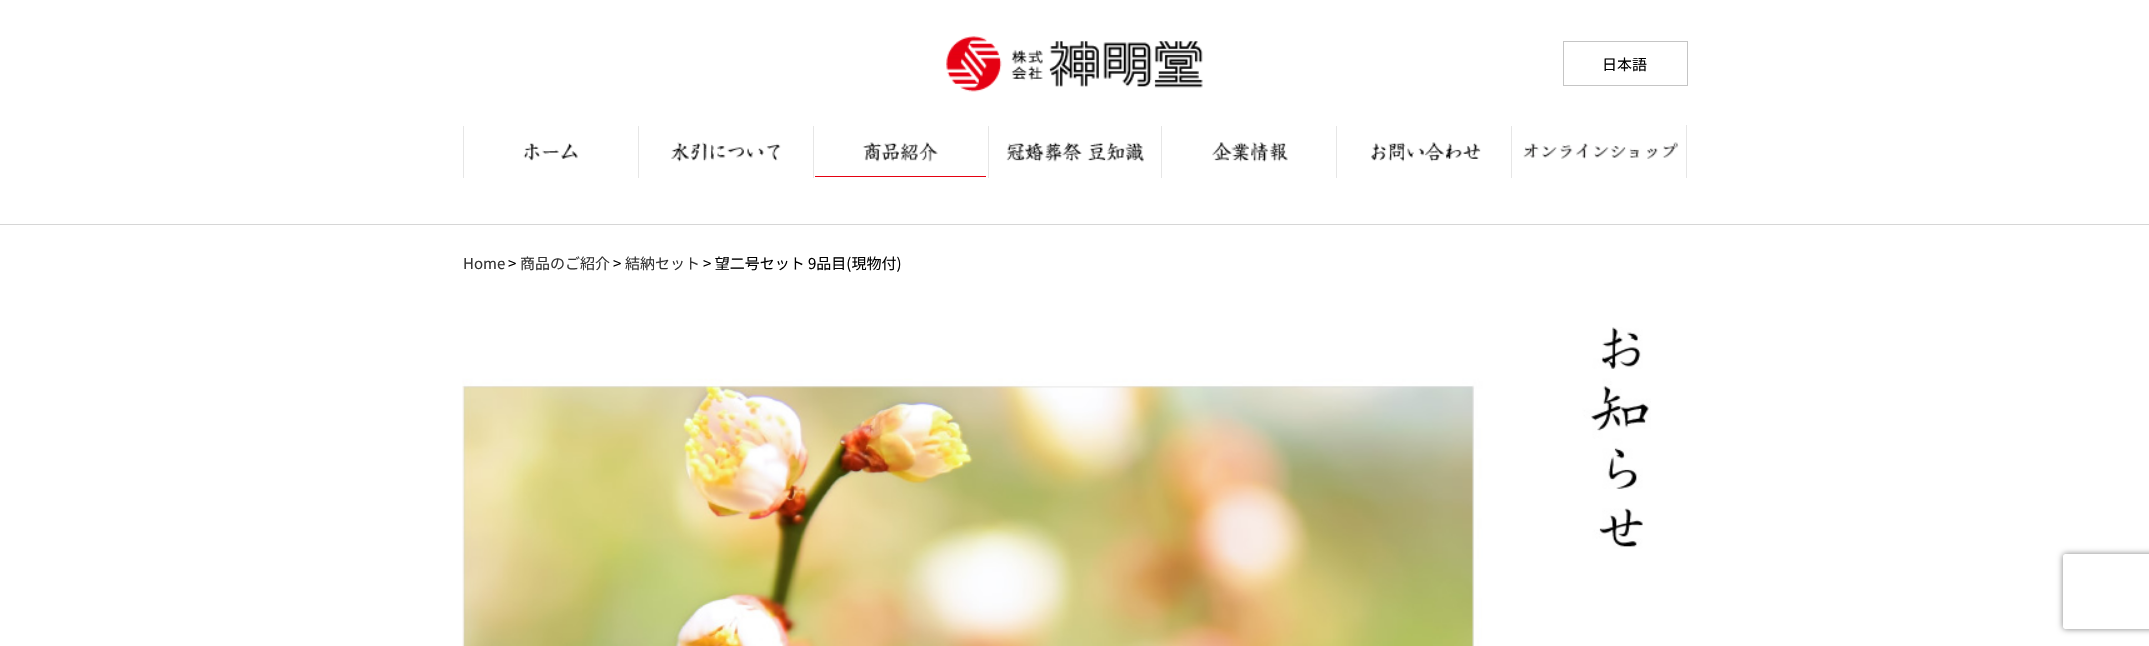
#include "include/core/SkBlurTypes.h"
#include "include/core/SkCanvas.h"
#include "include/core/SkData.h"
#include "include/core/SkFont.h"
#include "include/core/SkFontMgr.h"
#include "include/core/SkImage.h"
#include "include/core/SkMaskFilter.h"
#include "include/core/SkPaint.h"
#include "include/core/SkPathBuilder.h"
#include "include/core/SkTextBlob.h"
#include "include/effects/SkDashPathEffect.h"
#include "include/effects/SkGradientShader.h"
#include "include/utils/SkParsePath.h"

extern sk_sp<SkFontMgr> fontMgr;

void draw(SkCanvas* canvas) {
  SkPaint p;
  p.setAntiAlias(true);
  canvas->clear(SK_ColorWHITE);
  p.setColor(SkColorSetRGB(214, 214, 214));
  canvas->drawRect(SkRect::MakeLTRB(0, 224, 2149, 225), p);
  canvas->drawImageRect(SkImages::DeferredFromEncodedData(SkData::MakeFromFileName("images/1.png")), SkRect::MakeLTRB(946, 36, 1203, 92), SkSamplingOptions());
  p.setStyle(SkPaint::kStroke_Style);
  p.setStrokeWidth(1);
  p.setColor(SkColorSetRGB(197, 197, 197));
  canvas->drawRect(SkRect::MakeLTRB(1563.5f, 41.5f, 1687.5f, 85.5f), p);
  p.setStyle(SkPaint::kFill_Style);
  p.setColor(SkColorSetRGB(230, 230, 230));
  canvas->drawRect(SkRect::MakeLTRB(638, 126, 639, 178), p);
  canvas->drawRect(SkRect::MakeLTRB(463, 126, 464, 178), p);
  canvas->drawImageRect(SkImages::DeferredFromEncodedData(SkData::MakeFromFileName("images/2.png")), SkRect::MakeLTRB(523, 143, 578, 161), SkSamplingOptions());
  canvas->drawRect(SkRect::MakeLTRB(813, 126, 814, 178), p);
  canvas->drawImageRect(SkImages::DeferredFromEncodedData(SkData::MakeFromFileName("images/3.png")), SkRect::MakeLTRB(671, 142, 781, 162), SkSamplingOptions());
  canvas->drawRect(SkRect::MakeLTRB(988, 126, 989, 178), p);
  p.setColor(SkColorSetRGB(229, 1, 18));
  canvas->drawRect(SkRect::MakeLTRB(815, 176, 986, 177), p);
  canvas->drawImageRect(SkImages::DeferredFromEncodedData(SkData::MakeFromFileName("images/4.png")), SkRect::MakeLTRB(862, 142, 938, 162), SkSamplingOptions());
  p.setColor(SkColorSetRGB(230, 230, 230));
  canvas->drawRect(SkRect::MakeLTRB(1161, 126, 1162, 178), p);
  canvas->drawImageRect(SkImages::DeferredFromEncodedData(SkData::MakeFromFileName("images/5.png")), SkRect::MakeLTRB(1006, 142, 1144, 162), SkSamplingOptions());
  canvas->drawRect(SkRect::MakeLTRB(1336, 126, 1337, 178), p);
  canvas->drawImageRect(SkImages::DeferredFromEncodedData(SkData::MakeFromFileName("images/6.png")), SkRect::MakeLTRB(1212, 142, 1288, 162), SkSamplingOptions());
  canvas->drawRect(SkRect::MakeLTRB(1511, 126, 1512, 178), p);
  canvas->drawImageRect(SkImages::DeferredFromEncodedData(SkData::MakeFromFileName("images/7.png")), SkRect::MakeLTRB(1371, 142, 1481, 162), SkSamplingOptions());
  canvas->drawRect(SkRect::MakeLTRB(1686, 125, 1687, 178), p);
  canvas->drawImageRect(SkImages::DeferredFromEncodedData(SkData::MakeFromFileName("images/8.png")), SkRect::MakeLTRB(1523, 142, 1679, 159), SkSamplingOptions());
  canvas->drawImageRect(SkImages::DeferredFromEncodedData(SkData::MakeFromFileName("images/9.png")), SkRect::MakeLTRB(462, 327, 1651, 646), SkSamplingOptions());
  canvas->save();
  canvas->clipPath(SkPathBuilder(SkPathFillType::kEvenOdd).moveTo(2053, 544).lineTo(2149, 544).lineTo(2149, 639).lineTo(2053, 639).close().moveTo(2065.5f, 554).lineTo(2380.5f, 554).cubicTo(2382, 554, 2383, 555, 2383, 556.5f).lineTo(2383, 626.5f).cubicTo(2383, 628, 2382, 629, 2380.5f, 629).lineTo(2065.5f, 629).cubicTo(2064, 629, 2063, 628, 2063, 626.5f).lineTo(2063, 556.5f).cubicTo(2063, 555, 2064, 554, 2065.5f, 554).close().detach(), true);
  p.setColor(SkColorSetRGB(128, 128, 128));
  p.setMaskFilter(SkMaskFilter::MakeBlur(kNormal_SkBlurStyle, 3));
  canvas->drawRoundRect(SkRect::MakeLTRB(2063, 554, 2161, 629), 2.5f, 2.5f, p);
  p.setMaskFilter(nullptr);
  canvas->restore();
  SkFont font1(fontMgr->matchFamilyStyle("Noto Sans JP", SkFontStyle::Normal()), 15);
  font1.setSubpixel(true);
  p.setColor(SK_ColorBLACK);
  canvas->drawString("日本語", 1602, 70, font1, p);
  p.setColor(SkColorSetRGB(51, 51, 51));
  canvas->drawString("Home", 463, 269, font1, p);
  p.setColor(SK_ColorBLACK);
  canvas->drawString(">", 508, 269, font1, p);
  p.setColor(SkColorSetRGB(51, 51, 51));
  canvas->drawString("商品のご紹介", 520, 269, font1, p);
  p.setColor(SK_ColorBLACK);
  canvas->drawString(">", 613, 269, font1, p);
  p.setColor(SkColorSetRGB(51, 51, 51));
  canvas->drawString("結納セット", 625, 269, font1, p);
  p.setColor(SK_ColorBLACK);
  canvas->drawString("> 望二号セット 9品目(現物付)", 703, 269, font1, p);
}
